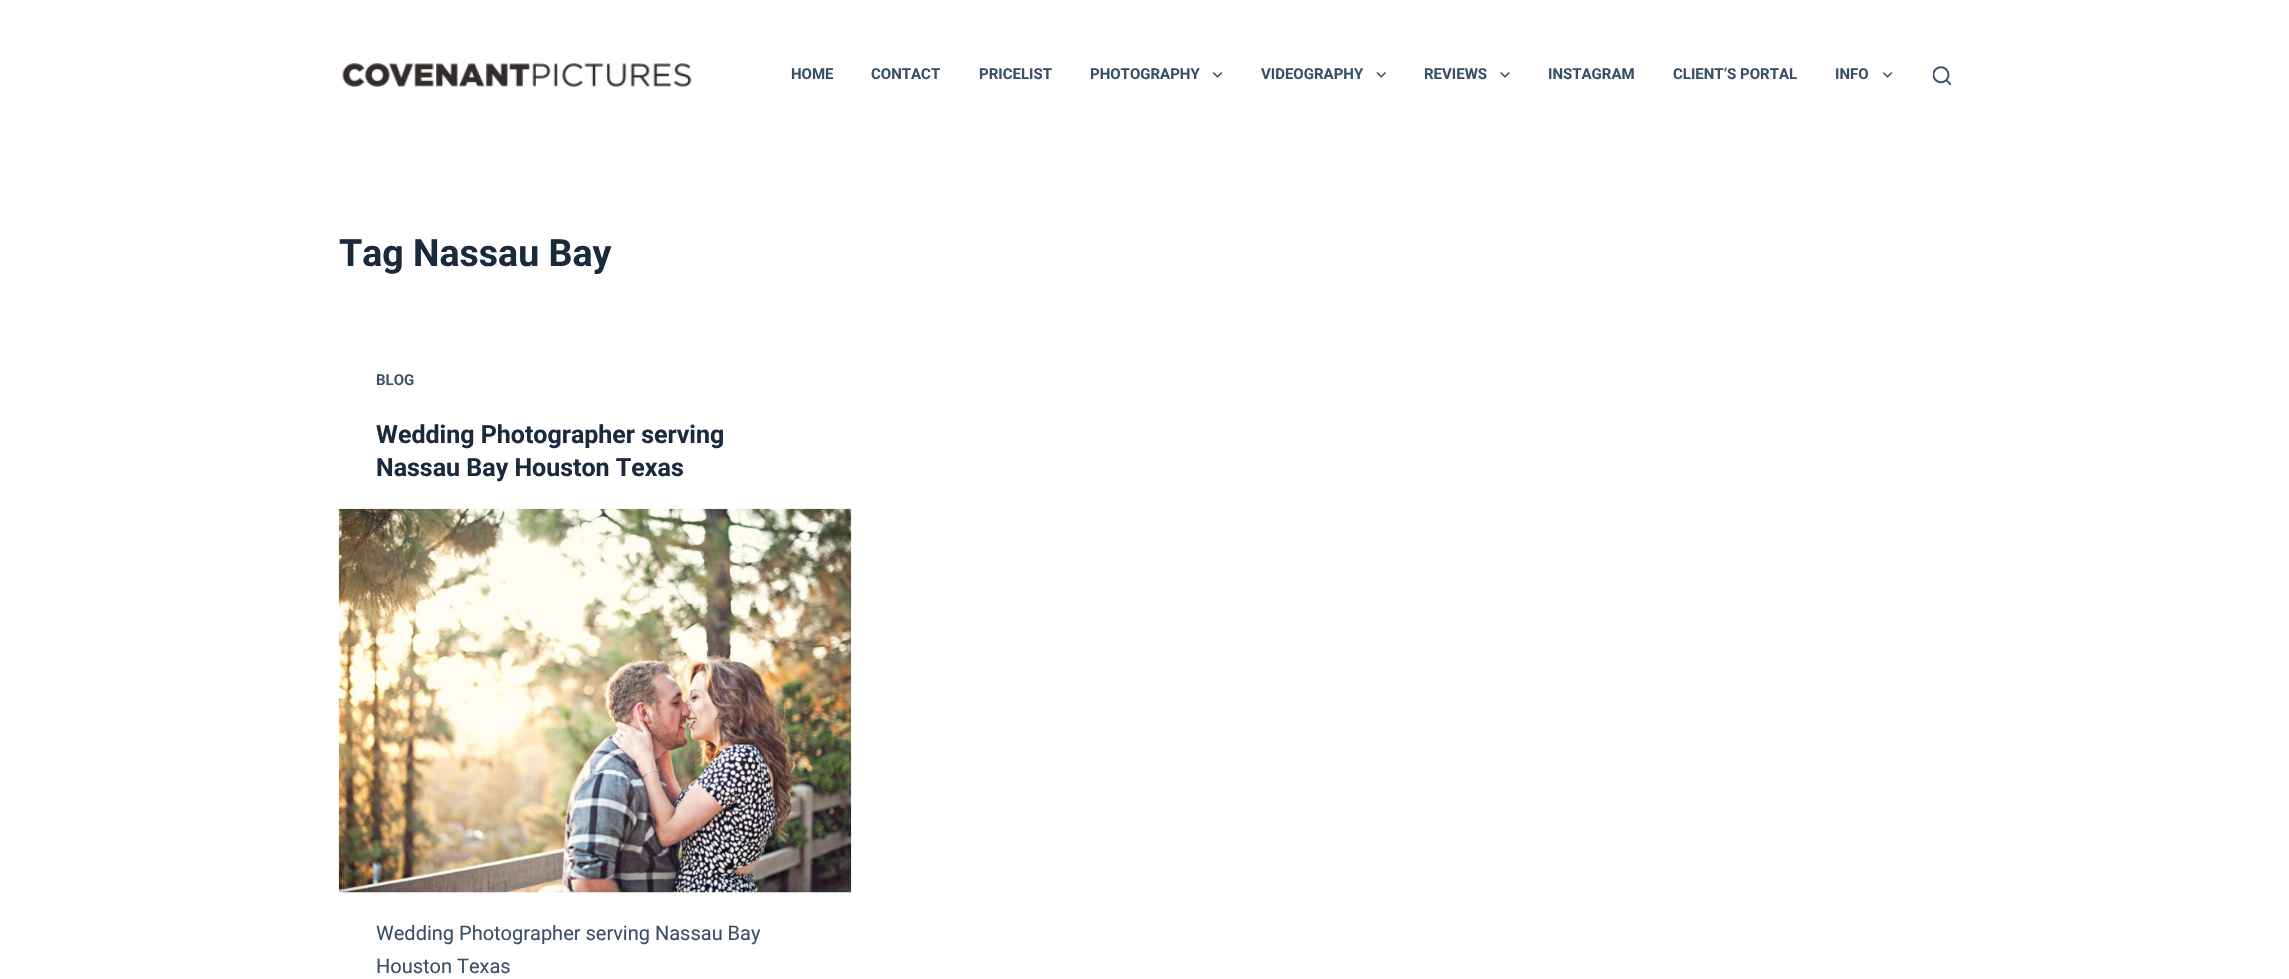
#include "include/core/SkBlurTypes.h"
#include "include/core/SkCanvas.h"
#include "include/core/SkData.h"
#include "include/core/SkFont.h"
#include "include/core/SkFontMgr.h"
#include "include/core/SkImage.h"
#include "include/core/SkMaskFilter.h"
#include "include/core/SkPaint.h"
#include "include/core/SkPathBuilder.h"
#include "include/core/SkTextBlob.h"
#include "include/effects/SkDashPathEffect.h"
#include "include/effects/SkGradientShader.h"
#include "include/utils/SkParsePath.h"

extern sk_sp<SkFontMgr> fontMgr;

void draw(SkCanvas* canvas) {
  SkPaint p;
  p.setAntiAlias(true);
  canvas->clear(SK_ColorWHITE);
  canvas->drawImageRect(SkImages::DeferredFromEncodedData(SkData::MakeFromFileName("images/1.png")), SkRect::MakeLTRB(342, 63, 692, 87), SkSamplingOptions());
  canvas->drawImageRect(SkImages::DeferredFromEncodedData(SkData::MakeFromFileName("images/2.png")), SkRect::MakeLTRB(1213, 72, 1223, 78), SkSamplingOptions());
  canvas->drawImageRect(SkImages::DeferredFromEncodedData(SkData::MakeFromFileName("images/3.png")), SkRect::MakeLTRB(1376, 72, 1386, 78), SkSamplingOptions());
  canvas->drawImageRect(SkImages::DeferredFromEncodedData(SkData::MakeFromFileName("images/4.png")), SkRect::MakeLTRB(1500, 72, 1510, 78), SkSamplingOptions());
  canvas->drawImageRect(SkImages::DeferredFromEncodedData(SkData::MakeFromFileName("images/2.png")), SkRect::MakeLTRB(1883, 72, 1893, 78), SkSamplingOptions());
  canvas->drawImageRect(SkImages::DeferredFromEncodedData(SkData::MakeFromFileName("images/5.png")), SkRect::MakeLTRB(1933, 66, 1951, 85), SkSamplingOptions());
  canvas->drawImageRect(SkImages::DeferredFromEncodedData(SkData::MakeFromFileName("images/6.png")), SkRect::MakeLTRB(338, 508, 852, 893), SkSamplingOptions());
  SkFont font1(fontMgr->matchFamilyStyle("Roboto", SkFontStyle::Bold()), 15);
  font1.setSubpixel(true);
  p.setColor(SkColorSetRGB(58, 79, 102));
  canvas->drawString("HOME", 791, 79, font1, p);
  canvas->drawString("CONTACT", 871, 79, font1, p);
  canvas->drawString("PRICELIST", 979, 79, font1, p);
  canvas->drawString("PHOTOGRAPHY", 1090, 79, font1, p);
  canvas->drawString("VIDEOGRAPHY", 1261, 79, font1, p);
  canvas->drawString("REVIEWS", 1424, 79, font1, p);
  canvas->drawString("INSTAGRAM", 1548, 79, font1, p);
  canvas->drawString("CLIENT’S PORTAL", 1673, 79, font1, p);
  canvas->drawString("INFO", 1835, 79, font1, p);
  SkFont font2(fontMgr->matchFamilyStyle("Roboto", SkFontStyle::Bold()), 37.5f);
  font2.setSubpixel(true);
  p.setColor(SkColorSetRGB(25, 42, 61));
  canvas->drawString("Tag Nassau Bay", 339, 266, font2, p);
  SkFont font3(fontMgr->matchFamilyStyle("Roboto", SkFontStyle(600, SkFontStyle::kNormal_Width, SkFontStyle::kUpright_Slant)), 15);
  font3.setSubpixel(true);
  p.setColor(SkColorSetRGB(58, 79, 102));
  canvas->drawString("BLOG", 376, 385, font3, p);
  SkFont font4(fontMgr->matchFamilyStyle("Roboto", SkFontStyle::Bold()), 25);
  font4.setSubpixel(true);
  p.setColor(SkColorSetRGB(25, 42, 61));
  canvas->drawString("Wedding Photographer serving", 376, 443, font4, p);
  canvas->drawString("Nassau Bay Houston Texas", 376, 476, font4, p);
  SkFont font5(fontMgr->matchFamilyStyle("Roboto", SkFontStyle::Normal()), 20);
  font5.setSubpixel(true);
  p.setColor(SkColorSetRGB(58, 79, 102));
  canvas->drawString("Wedding Photographer serving Nassau Bay", 376, 940, font5, p);
  canvas->drawString("Houston Texas", 376, 973, font5, p);
}
